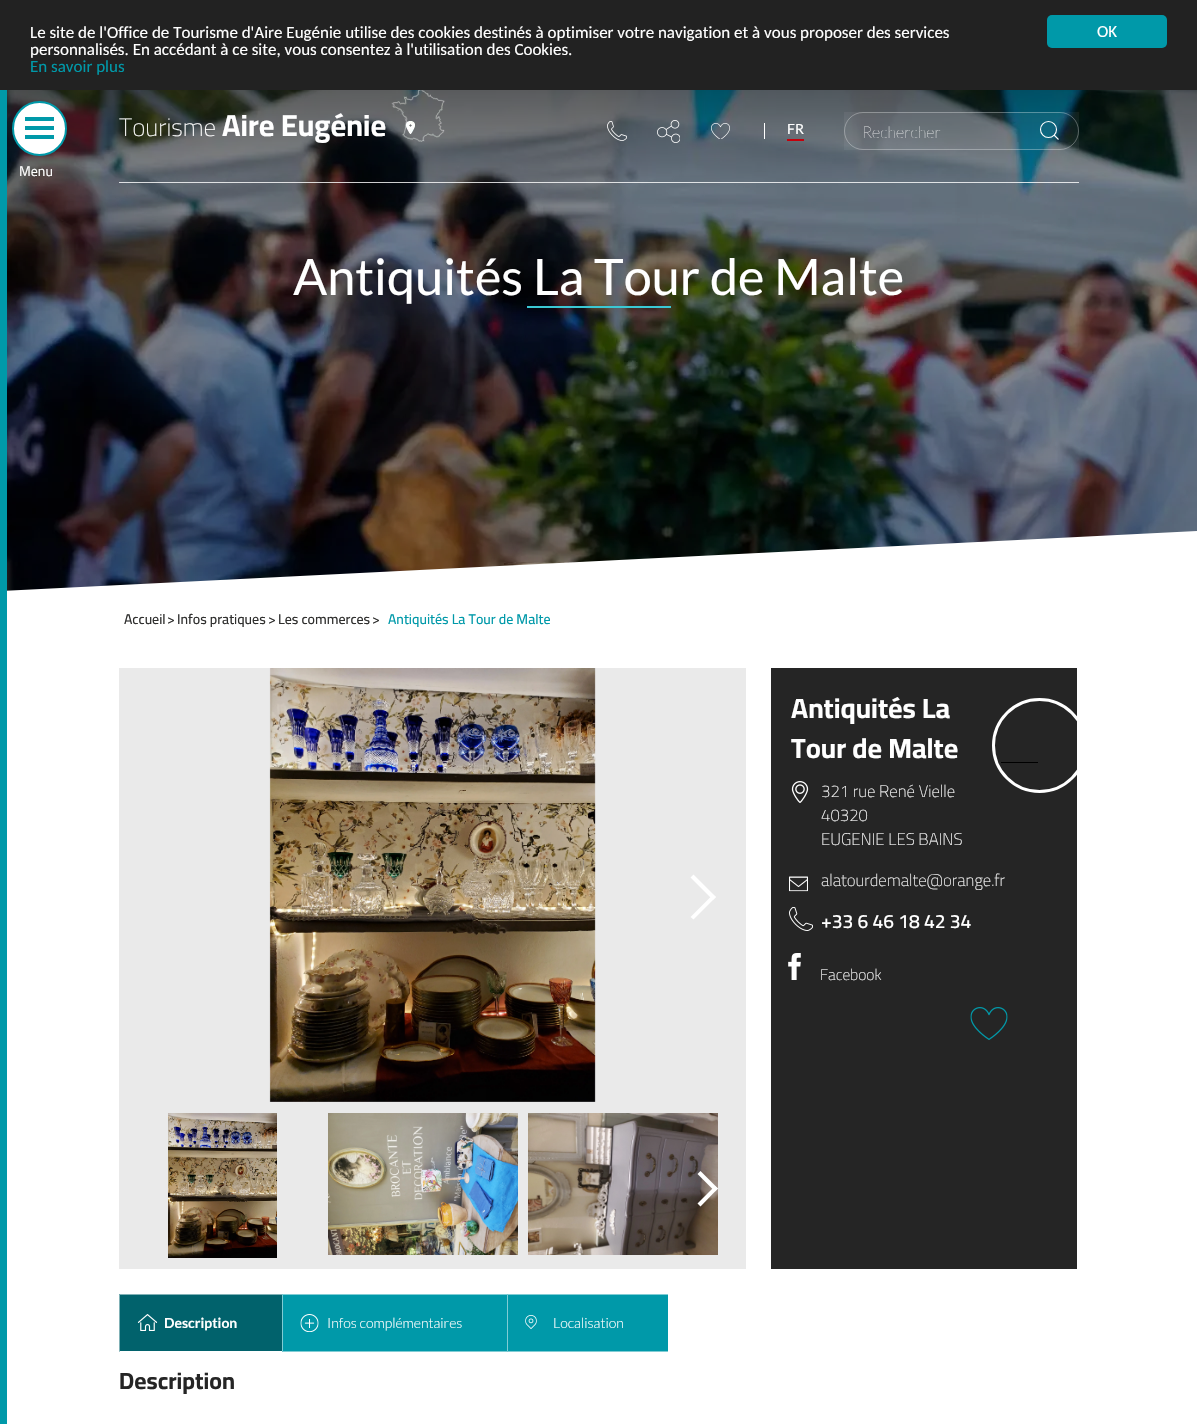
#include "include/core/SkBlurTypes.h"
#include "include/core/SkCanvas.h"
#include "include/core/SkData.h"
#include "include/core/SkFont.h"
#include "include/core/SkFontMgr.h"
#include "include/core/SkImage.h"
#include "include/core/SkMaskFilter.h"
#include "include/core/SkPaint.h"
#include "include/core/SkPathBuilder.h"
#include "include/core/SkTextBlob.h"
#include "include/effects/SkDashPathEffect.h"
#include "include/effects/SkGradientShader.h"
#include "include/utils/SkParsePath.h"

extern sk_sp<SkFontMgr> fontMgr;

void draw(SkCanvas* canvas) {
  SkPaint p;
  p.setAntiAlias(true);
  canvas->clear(SK_ColorWHITE);
  p.setColor(SkColorSetRGB(34, 34, 34));
  canvas->drawRect(SkRect::MakeLTRB(0, 0, 1197, 90), p);
  p.setColor(SkColorSetRGB(0, 153, 169));
  canvas->drawRoundRect(SkRect::MakeLTRB(1047, 15, 1167, 48), 5, 5, p);
  canvas->drawImageRect(SkImages::DeferredFromEncodedData(SkData::MakeFromFileName("images/5.png")), SkRect::MakeLTRB(7, 90, 1197, 591), SkSamplingOptions());
  p.setColor(SK_ColorWHITE);
  canvas->drawPath(SkPathBuilder().moveTo(1, 591).lineTo(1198, 531).lineTo(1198, 595).lineTo(1, 655).close().detach(), p);
  p.setColor(SkColorSetRGB(0, 153, 169));
  canvas->drawRect(SkRect::MakeLTRB(0, 90, 7, 1424), p);
  p.setColor(SkColorSetARGB(204, 255, 255, 255));
  canvas->drawRect(SkRect::MakeLTRB(119, 182, 1079, 183), p);
  canvas->drawImageRect(SkImages::DeferredFromEncodedData(SkData::MakeFromFileName("images/1.png")), SkRect::MakeLTRB(391, 90, 445, 142), SkSamplingOptions());
  canvas->drawImageRect(SkImages::DeferredFromEncodedData(SkData::MakeFromFileName("images/2.png")), SkRect::MakeLTRB(607, 121, 627, 141), SkSamplingOptions());
  canvas->drawImageRect(SkImages::DeferredFromEncodedData(SkData::MakeFromFileName("images/3.png")), SkRect::MakeLTRB(657, 120, 680, 143), SkSamplingOptions());
  canvas->drawImageRect(SkImages::DeferredFromEncodedData(SkData::MakeFromFileName("images/4.png")), SkRect::MakeLTRB(711, 123, 730, 139), SkSamplingOptions());
  p.setColor(SK_ColorWHITE);
  canvas->drawRect(SkRect::MakeLTRB(764, 123, 765, 139), p);
  p.setColor(SkColorSetRGB(197, 0, 12));
  canvas->drawRect(SkRect::MakeLTRB(787, 139, 804, 141), p);
  p.setColor(SkColorSetARGB(13, 255, 255, 255));
  canvas->drawRect(SkRect::MakeLTRB(844, 112, 1079, 150), p);
  p.setStyle(SkPaint::kStroke_Style);
  p.setStrokeWidth(1);
  p.setColor(SkColorSetARGB(77, 255, 255, 255));
  canvas->drawRoundRect(SkRect::MakeLTRB(844.5f, 112.5f, 1078.5f, 149.5f), 18.5f, 18.5f, p);
  p.setStrokeWidth(1.1f);
  p.setColor(SK_ColorWHITE);
  canvas->drawCircle(1048.5f, 129.5f, 8, p);
  p.setStrokeJoin(SkPaint::kRound_Join);
  canvas->drawPath(SkPathBuilder().moveTo(1058.5f, 139.5f).lineTo(1054, 135).detach(), p);
  p.setStyle(SkPaint::kFill_Style);
  canvas->drawCircle(39.5f, 128.5f, 26.5f, p);
  p.setStyle(SkPaint::kStroke_Style);
  p.setStrokeWidth(2);
  p.setStrokeJoin(SkPaint::kMiter_Join);
  p.setColor(SkColorSetRGB(0, 153, 169));
  canvas->drawCircle(39.5f, 128.5f, 26.5f, p);
  p.setStyle(SkPaint::kFill_Style);
  canvas->drawRect(SkRect::MakeLTRB(25, 117, 54, 121), p);
  canvas->drawRect(SkRect::MakeLTRB(25, 126, 54, 130), p);
  canvas->drawRect(SkRect::MakeLTRB(25, 135, 54, 139), p);
  p.setColor(SkColorSetRGB(58, 200, 212));
  canvas->drawRect(SkRect::MakeLTRB(527, 306, 671, 308), p);
  p.setColor(SkColorSetRGB(234, 234, 234));
  canvas->drawRect(SkRect::MakeLTRB(119, 668, 746, 1269), p);
  canvas->drawImageRect(SkImages::DeferredFromEncodedData(SkData::MakeFromFileName("images/6.png")), SkRect::MakeLTRB(269, 668, 596, 1102), SkSamplingOptions());
  p.setColor(SK_ColorWHITE);
  canvas->drawPath(SkPathBuilder().moveTo(693.5f, 874.5f).lineTo(716, 897).lineTo(713, 900).lineTo(690.5f, 877.5f).close().detach(), p);
  canvas->drawPath(SkPathBuilder().moveTo(713, 894.5f).lineTo(716, 897).lineTo(693.5f, 919.5f).lineTo(690.5f, 917).close().detach(), p);
  canvas->drawImageRect(SkImages::DeferredFromEncodedData(SkData::MakeFromFileName("images/7.png")), SkRect::MakeLTRB(168, 1113, 277, 1258), SkSamplingOptions());
  canvas->drawImageRect(SkImages::DeferredFromEncodedData(SkData::MakeFromFileName("images/8.png")), SkRect::MakeLTRB(328, 1113, 518, 1255), SkSamplingOptions());
  canvas->drawImageRect(SkImages::DeferredFromEncodedData(SkData::MakeFromFileName("images/9.png")), SkRect::MakeLTRB(528, 1113, 718, 1255), SkSamplingOptions());
  canvas->drawPath(SkPathBuilder().moveTo(700.5f, 1171).lineTo(718, 1188.5f).lineTo(715, 1191.5f).lineTo(697.5f, 1174).close().detach(), p);
  canvas->drawPath(SkPathBuilder().moveTo(715, 1186).lineTo(718, 1188.5f).lineTo(700.5f, 1206.5f).lineTo(697.5f, 1203.5f).close().detach(), p);
  p.setColor(SkColorSetRGB(37, 37, 37));
  canvas->drawRect(SkRect::MakeLTRB(771, 668, 1077, 1269), p);
  p.setColor(SK_ColorBLACK);
  canvas->drawRect(SkRect::MakeLTRB(1001, 762, 1038, 763), p);
  p.setStyle(SkPaint::kStroke_Style);
  p.setStrokeWidth(3);
  p.setColor(SK_ColorWHITE);
  canvas->drawCircle(1039.5f, 745.5f, 46, p);
  canvas->drawImageRect(SkImages::DeferredFromEncodedData(SkData::MakeFromFileName("images/10.png")), SkRect::MakeLTRB(791, 781, 809, 803), SkSamplingOptions());
  canvas->drawImageRect(SkImages::DeferredFromEncodedData(SkData::MakeFromFileName("images/11.png")), SkRect::MakeLTRB(789, 876, 808, 892), SkSamplingOptions());
  canvas->drawImageRect(SkImages::DeferredFromEncodedData(SkData::MakeFromFileName("images/12.png")), SkRect::MakeLTRB(789, 907, 813, 931), SkSamplingOptions());
  canvas->drawImageRect(SkImages::DeferredFromEncodedData(SkData::MakeFromFileName("images/13.png")), SkRect::MakeLTRB(788, 953, 801, 980), SkSamplingOptions());
  canvas->drawImageRect(SkImages::DeferredFromEncodedData(SkData::MakeFromFileName("images/14.png")), SkRect::MakeLTRB(970, 1007, 1008, 1040), SkSamplingOptions());
  p.setStyle(SkPaint::kFill_Style);
  p.setColor(SkColorSetRGB(1, 98, 108));
  canvas->drawRect(SkRect::MakeLTRB(119, 1294, 282, 1352), p);
  p.setColor(SkColorSetRGB(128, 177, 182));
  canvas->drawPath(SkPathBuilder().moveTo(119, 1294).lineTo(282, 1294).lineTo(282, 1295).lineTo(120, 1295).close().detach(), p);
  p.setColor(SK_ColorWHITE);
  canvas->drawPath(SkPathBuilder().moveTo(282, 1352).lineTo(119, 1352).lineTo(120, 1351).lineTo(282, 1351).close().detach(), p);
  p.setColor(SkColorSetARGB(128, 255, 255, 255));
  canvas->drawPath(SkPathBuilder().moveTo(119, 1352).lineTo(119, 1294).lineTo(120, 1295).lineTo(120, 1351).close().detach(), p);
  canvas->drawImageRect(SkImages::DeferredFromEncodedData(SkData::MakeFromFileName("images/15.png")), SkRect::MakeLTRB(137, 1314, 158, 1331), SkSamplingOptions());
  p.setColor(SkColorSetRGB(0, 153, 169));
  canvas->drawRect(SkRect::MakeLTRB(282, 1294, 668, 1352), p);
  p.setColor(SkColorSetRGB(128, 204, 212));
  canvas->drawPath(SkPathBuilder().moveTo(282, 1294).lineTo(507, 1294).lineTo(507, 1295).lineTo(283, 1295).close().detach(), p);
  canvas->drawPath(SkPathBuilder().moveTo(507, 1352).lineTo(282, 1352).lineTo(283, 1351).lineTo(507, 1351).close().detach(), p);
  p.setColor(SkColorSetARGB(128, 255, 255, 255));
  canvas->drawPath(SkPathBuilder().moveTo(282, 1352).lineTo(282, 1294).lineTo(283, 1295).lineTo(283, 1351).close().detach(), p);
  canvas->drawImageRect(SkImages::DeferredFromEncodedData(SkData::MakeFromFileName("images/16.png")), SkRect::MakeLTRB(300, 1314, 319, 1332), SkSamplingOptions());
  p.setColor(SkColorSetRGB(128, 204, 212));
  canvas->drawPath(SkPathBuilder().moveTo(507, 1294).lineTo(668, 1294).lineTo(668, 1295).lineTo(508, 1295).close().detach(), p);
  canvas->drawPath(SkPathBuilder().moveTo(668, 1352).lineTo(507, 1352).lineTo(508, 1351).lineTo(668, 1351).close().detach(), p);
  p.setColor(SkColorSetARGB(128, 255, 255, 255));
  canvas->drawPath(SkPathBuilder().moveTo(507, 1352).lineTo(507, 1294).lineTo(508, 1295).lineTo(508, 1351).close().detach(), p);
  canvas->drawImageRect(SkImages::DeferredFromEncodedData(SkData::MakeFromFileName("images/17.png")), SkRect::MakeLTRB(525, 1315, 537, 1329), SkSamplingOptions());
  SkFont font1(fontMgr->matchFamilyStyle("Carlito", SkFontStyle::Normal()), 17);
  font1.setSubpixel(true);
  p.setColor(SK_ColorWHITE);
  canvas->drawString("Le site de l'Office de Tourisme d'Aire Eugénie utilise des cookies destinés à optimiser votre navigation et à vous proposer des services", 30, 38, font1, p);
  canvas->drawString("personnalisés. En accédant à ce site, vous consentez à l'utilisation des Cookies.", 30, 55, font1, p);
  p.setColor(SkColorSetRGB(0, 153, 169));
  canvas->drawString("En savoir plus", 30, 72, font1, p);
  p.setColor(SK_ColorWHITE);
  canvas->drawString("OK", 1097, 37, font1, p);
  SkFont font2(fontMgr->matchFamilyStyle("Cairo", SkFontStyle(200, SkFontStyle::kNormal_Width, SkFontStyle::kUpright_Slant)), 25);
  font2.setSubpixel(true);
  canvas->drawString("Tourisme", 119, 136, font2, p);
  SkFont font3(fontMgr->matchFamilyStyle("Cairo", SkFontStyle::Bold()), 30.25f);
  font3.setSubpixel(true);
  canvas->drawString("Aire Eugénie", 222, 136, font3, p);
  SkFont font4(fontMgr->matchFamilyStyle("Lato", SkFontStyle::Normal()), 14);
  font4.setSubpixel(true);
  canvas->drawString("FR", 787, 134, font4, p);
  SkFont font5(fontMgr->matchFamilyStyle("Lato", SkFontStyle(100, SkFontStyle::kNormal_Width, SkFontStyle::kUpright_Slant)), 16.25f);
  font5.setSubpixel(true);
  canvas->drawString("Rechercher", 862, 138, font5, p);
  SkFont font6(fontMgr->matchFamilyStyle("Cairo", SkFontStyle::Normal()), 14);
  font6.setSubpixel(true);
  canvas->drawString("Menu", 19, 176, font6, p);
  SkFont font7(fontMgr->matchFamilyStyle("Lato", SkFontStyle::Normal()), 50.4f);
  font7.setSubpixel(true);
  canvas->drawString("Antiquités La Tour de Malte", 293, 295, font7, p);
  SkFont font8(fontMgr->matchFamilyStyle("Cairo", SkFontStyle(500, SkFontStyle::kNormal_Width, SkFontStyle::kUpright_Slant)), 14);
  font8.setSubpixel(true);
  p.setColor(SkColorSetRGB(48, 48, 47));
  canvas->drawString("Accueil", 124, 624, font8, p);
  canvas->drawString(">", 167, 624, font8, p);
  canvas->drawString("Infos pratiques", 177, 624, font8, p);
  canvas->drawString(">", 268, 624, font8, p);
  canvas->drawString("Les commerces", 278, 624, font8, p);
  canvas->drawString(">", 372, 624, font8, p);
  p.setColor(SkColorSetRGB(0, 153, 169));
  canvas->drawString("Antiquités La Tour de Malte", 388, 624, font8, p);
  SkFont font9(fontMgr->matchFamilyStyle("Cairo", SkFontStyle::Bold()), 28);
  font9.setSubpixel(true);
  p.setColor(SK_ColorWHITE);
  canvas->drawString("Antiquités La", 791, 718, font9, p);
  canvas->drawString("Tour de Malte", 791, 758, font9, p);
  SkFont font10(fontMgr->matchFamilyStyle("Cairo", SkFontStyle(200, SkFontStyle::kNormal_Width, SkFontStyle::kUpright_Slant)), 16.75f);
  font10.setSubpixel(true);
  canvas->drawString("321 rue René Vielle", 821, 797, font10, p);
  canvas->drawString("40320", 821, 821, font10, p);
  canvas->drawString("EUGENIE LES BAINS", 821, 845, font10, p);
  canvas->drawString("alatourdemalte@orange.fr", 821, 886, font10, p);
  SkFont font11(fontMgr->matchFamilyStyle("Cairo", SkFontStyle(600, SkFontStyle::kNormal_Width, SkFontStyle::kUpright_Slant)), 19.25f);
  font11.setSubpixel(true);
  canvas->drawString("+33 6 46 18 42 34", 821, 928, font11, p);
  SkFont font12(fontMgr->matchFamilyStyle("Cairo", SkFontStyle(200, SkFontStyle::kNormal_Width, SkFontStyle::kUpright_Slant)), 15.5f);
  font12.setSubpixel(true);
  canvas->drawString("Facebook", 820, 980, font12, p);
  SkFont font13(fontMgr->matchFamilyStyle("Lato", SkFontStyle::Bold()), 14);
  font13.setSubpixel(true);
  canvas->drawString("Description", 164, 1328, font13, p);
  SkFont font14(fontMgr->matchFamilyStyle("Lato", SkFontStyle(300, SkFontStyle::kNormal_Width, SkFontStyle::kUpright_Slant)), 14);
  font14.setSubpixel(true);
  canvas->drawString("Infos complémentaires", 327, 1328, font14, p);
  canvas->drawString("Localisation", 553, 1328, font14, p);
  SkFont font15(fontMgr->matchFamilyStyle("Cairo", SkFontStyle::Bold()), 23.5f);
  font15.setSubpixel(true);
  p.setColor(SkColorSetRGB(37, 37, 37));
  canvas->drawString("Description", 119, 1389, font15, p);
}
